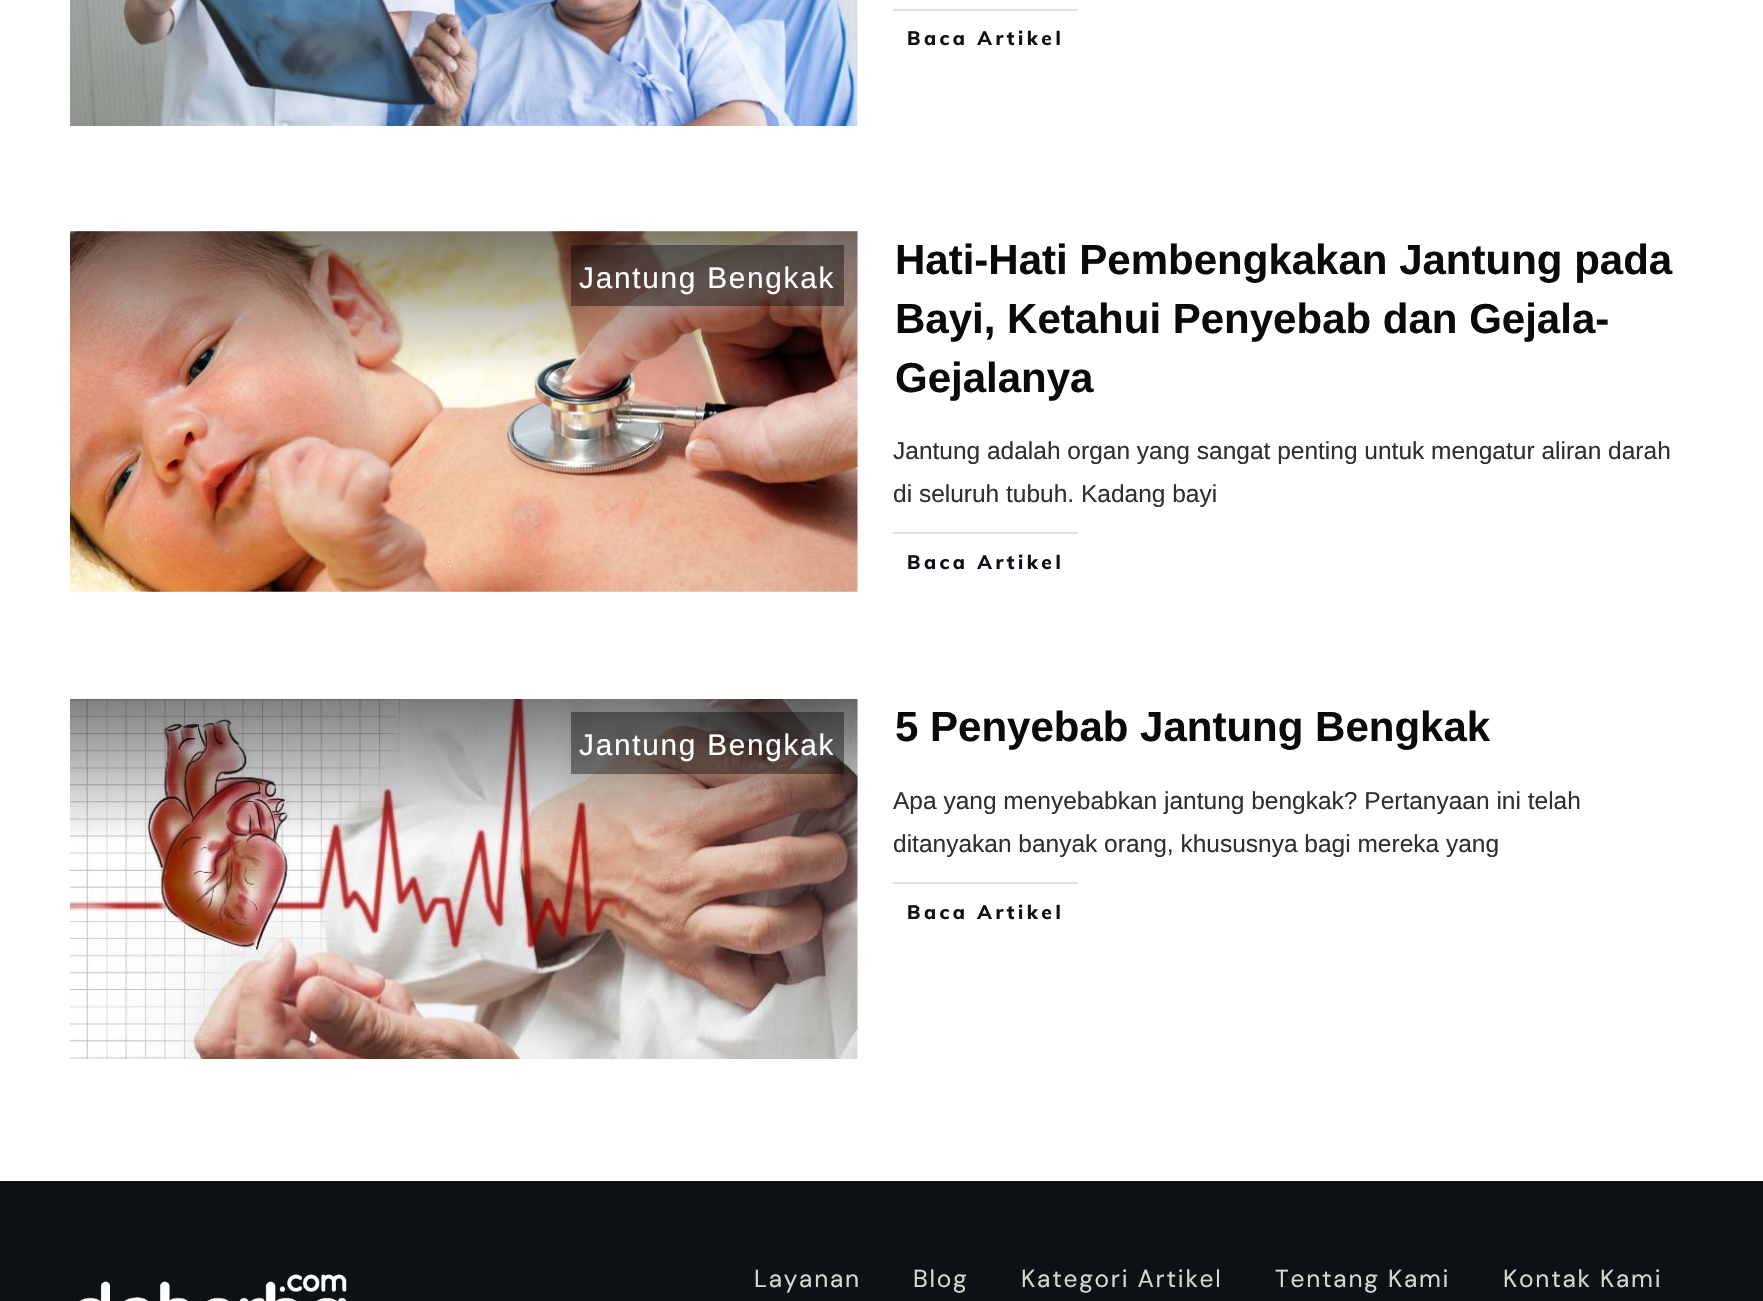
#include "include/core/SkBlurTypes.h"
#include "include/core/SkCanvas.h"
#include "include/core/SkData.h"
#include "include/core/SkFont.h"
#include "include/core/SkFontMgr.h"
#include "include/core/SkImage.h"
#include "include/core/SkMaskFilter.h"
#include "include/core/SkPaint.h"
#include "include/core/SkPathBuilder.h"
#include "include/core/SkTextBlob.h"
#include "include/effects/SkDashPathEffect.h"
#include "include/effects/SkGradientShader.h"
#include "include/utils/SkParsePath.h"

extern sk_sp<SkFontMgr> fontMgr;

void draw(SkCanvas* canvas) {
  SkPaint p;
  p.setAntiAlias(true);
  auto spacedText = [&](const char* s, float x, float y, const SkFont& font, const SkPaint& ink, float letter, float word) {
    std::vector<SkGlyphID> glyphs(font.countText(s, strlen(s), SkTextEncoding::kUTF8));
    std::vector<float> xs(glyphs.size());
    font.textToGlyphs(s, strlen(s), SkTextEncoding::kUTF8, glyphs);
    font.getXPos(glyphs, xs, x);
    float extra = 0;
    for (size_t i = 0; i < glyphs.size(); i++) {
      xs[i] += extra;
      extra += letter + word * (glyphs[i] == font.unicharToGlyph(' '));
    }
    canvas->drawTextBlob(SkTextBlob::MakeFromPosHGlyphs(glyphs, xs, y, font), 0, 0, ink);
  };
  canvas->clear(SK_ColorWHITE);
  canvas->drawImageRect(SkImages::DeferredFromEncodedData(SkData::MakeFromFileName("images/1.png")), SkRect::MakeLTRB(70, 0, 858, 126), SkSamplingOptions());
  p.setColor(SkColorSetRGB(224, 224, 224));
  canvas->drawRect(SkRect::MakeLTRB(893, 9, 1078, 11), p);
  canvas->drawImageRect(SkImages::DeferredFromEncodedData(SkData::MakeFromFileName("images/2.png")), SkRect::MakeLTRB(70, 231, 858, 592), SkSamplingOptions());
  p.setColor(SkColorSetARGB(102, 0, 0, 0));
  canvas->drawRect(SkRect::MakeLTRB(571, 245, 844, 306), p);
  p.setColor(SkColorSetRGB(224, 224, 224));
  canvas->drawRect(SkRect::MakeLTRB(893, 532, 1078, 534), p);
  canvas->drawImageRect(SkImages::DeferredFromEncodedData(SkData::MakeFromFileName("images/3.png")), SkRect::MakeLTRB(70, 699, 858, 1059), SkSamplingOptions());
  p.setColor(SkColorSetARGB(102, 0, 0, 0));
  canvas->drawRect(SkRect::MakeLTRB(571, 712, 844, 774), p);
  p.setColor(SkColorSetRGB(224, 224, 224));
  canvas->drawRect(SkRect::MakeLTRB(893, 882, 1078, 884), p);
  p.setColor(SkColorSetRGB(12, 17, 21));
  canvas->drawRect(SkRect::MakeLTRB(0, 1181, 1763, 1301), p);
  canvas->drawImageRect(SkImages::DeferredFromEncodedData(SkData::MakeFromFileName("images/4.png")), SkRect::MakeLTRB(79, 1274, 347, 1301), SkSamplingOptions());
  SkFont font1(fontMgr->matchFamilyStyle("Muli", SkFontStyle(800, SkFontStyle::kNormal_Width, SkFontStyle::kUpright_Slant)), 19.25f);
  font1.setSubpixel(true);
  spacedText("Baca Artikel", 907, 45, font1, p, 3.5f, 0);
  SkFont font2(fontMgr->matchFamilyStyle("Liberation Sans", SkFontStyle::Normal()), 29.75f);
  font2.setSubpixel(true);
  p.setColor(SK_ColorWHITE);
  spacedText("Jantung Bengkak", 579, 288, font2, p, 1.75f, 0);
  SkFont font3(fontMgr->matchFamilyStyle("Liberation Sans", SkFontStyle::Bold()), 42);
  font3.setSubpixel(true);
  p.setColor(SkColorSetRGB(10, 10, 10));
  canvas->drawString("Hati-Hati Pembengkakan Jantung pada", 895, 274, font3, p);
  canvas->drawString("Bayi, Ketahui Penyebab dan Gejala-", 895, 333, font3, p);
  canvas->drawString("Gejalanya", 895, 392, font3, p);
  SkFont font4(fontMgr->matchFamilyStyle("Liberation Sans", SkFontStyle::Normal()), 24.5f);
  font4.setSubpixel(true);
  p.setColor(SkColorSetRGB(47, 47, 47));
  canvas->drawString("Jantung adalah organ yang sangat penting untuk mengatur aliran darah", 893, 459, font4, p);
  canvas->drawString("di seluruh tubuh. Kadang bayi", 893, 502, font4, p);
  p.setColor(SkColorSetRGB(12, 17, 21));
  spacedText("Baca Artikel", 907, 569, font1, p, 3.5f, 0);
  p.setColor(SK_ColorWHITE);
  spacedText("Jantung Bengkak", 579, 755, font2, p, 1.75f, 0);
  p.setColor(SkColorSetRGB(10, 10, 10));
  canvas->drawString("5 Penyebab Jantung Bengkak", 895, 741, font3, p);
  p.setColor(SkColorSetRGB(47, 47, 47));
  canvas->drawString("Apa yang menyebabkan jantung bengkak? Pertanyaan ini telah", 893, 809, font4, p);
  canvas->drawString("ditanyakan banyak orang, khususnya bagi mereka yang", 893, 852, font4, p);
  p.setColor(SkColorSetRGB(12, 17, 21));
  spacedText("Baca Artikel", 907, 919, font1, p, 3.5f, 0);
  SkFont font5(fontMgr->matchFamilyStyle("DM Sans", SkFontStyle::Normal()), 24.5f);
  font5.setSubpixel(true);
  p.setColor(SkColorSetRGB(213, 216, 206));
  spacedText("Layanan", 754, 1287, font5, p, 1.75f, 0);
  spacedText("Blog", 913, 1287, font5, p, 1.75f, 0);
  spacedText("Kategori Artikel", 1021, 1287, font5, p, 1.75f, 0);
  spacedText("Tentang Kami", 1275, 1287, font5, p, 1.75f, 0);
  spacedText("Kontak Kami", 1503, 1287, font5, p, 1.75f, 0);
}
